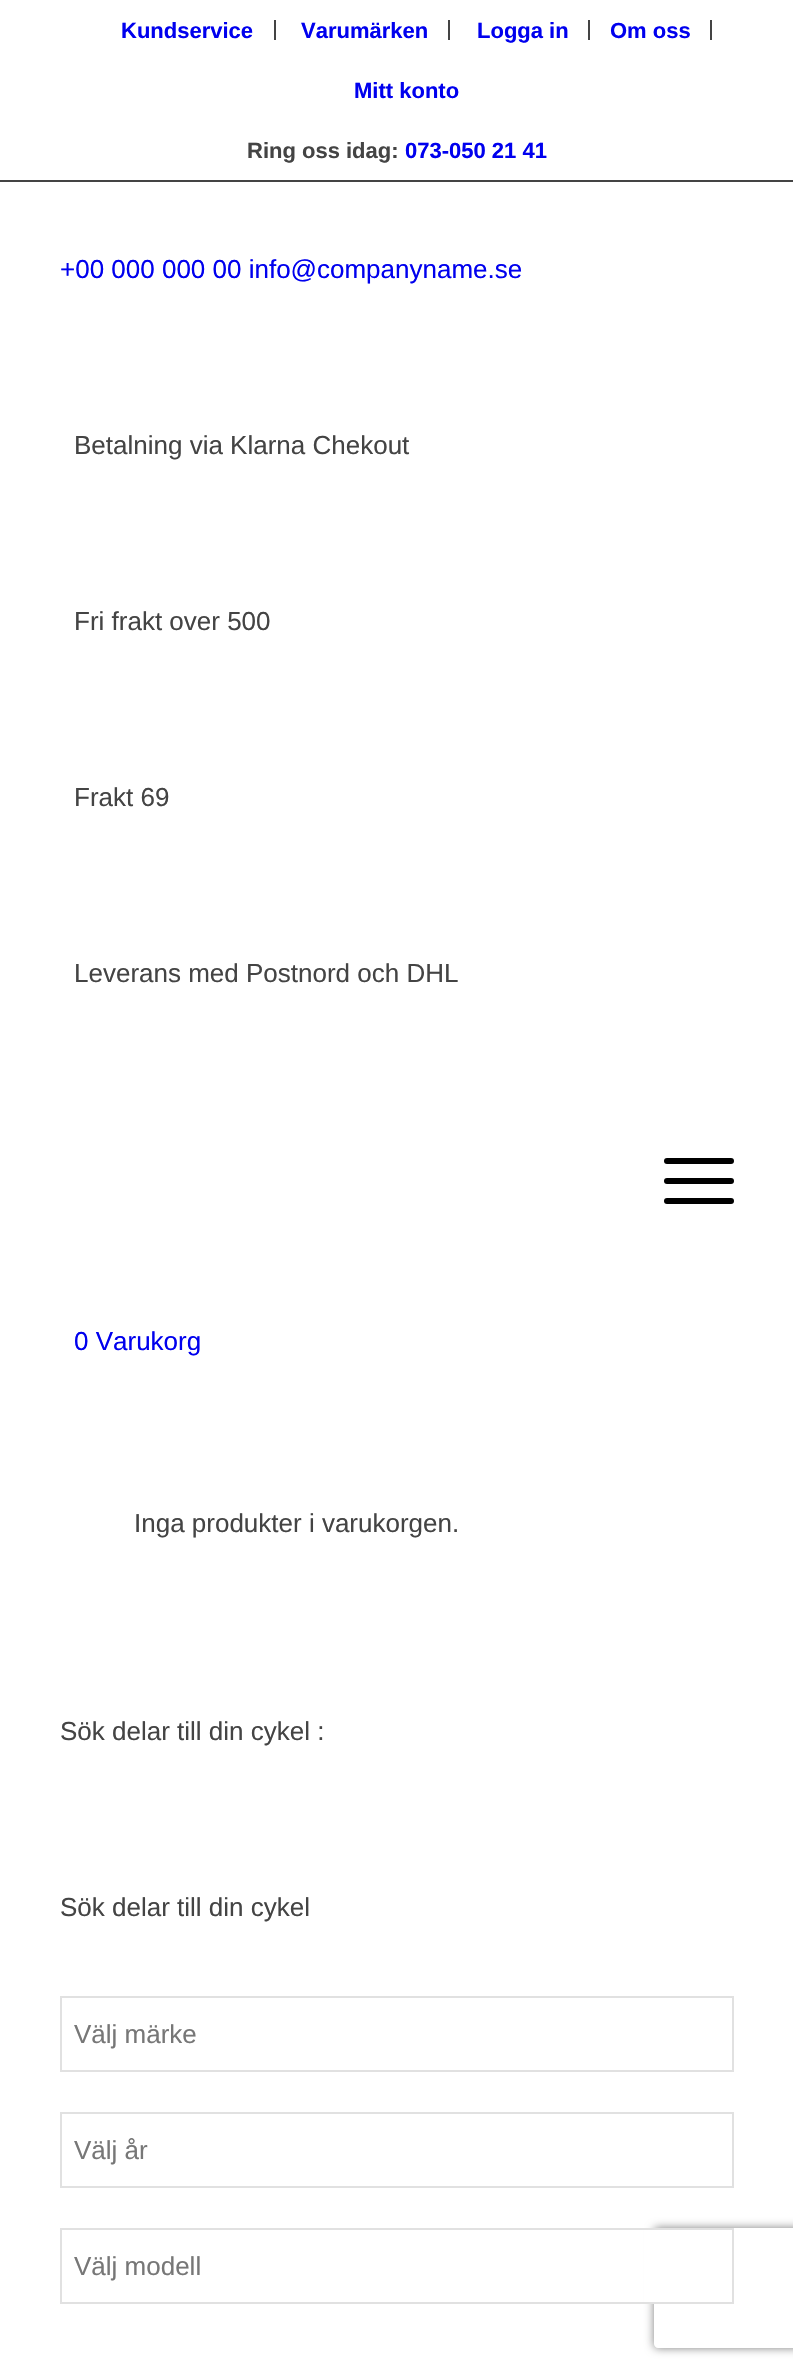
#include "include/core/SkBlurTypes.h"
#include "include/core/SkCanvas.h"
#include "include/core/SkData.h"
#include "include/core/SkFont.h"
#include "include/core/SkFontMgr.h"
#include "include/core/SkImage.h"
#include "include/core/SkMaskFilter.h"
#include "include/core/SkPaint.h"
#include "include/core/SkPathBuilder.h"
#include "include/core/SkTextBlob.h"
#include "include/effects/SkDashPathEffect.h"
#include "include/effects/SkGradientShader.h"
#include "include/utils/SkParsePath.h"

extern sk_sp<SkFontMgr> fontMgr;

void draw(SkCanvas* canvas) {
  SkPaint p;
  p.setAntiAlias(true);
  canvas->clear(SK_ColorWHITE);
  p.setColor(SkColorSetRGB(68, 68, 68));
  canvas->drawRect(SkRect::MakeLTRB(274, 20, 276, 40), p);
  canvas->drawRect(SkRect::MakeLTRB(448, 20, 450, 40), p);
  canvas->drawRect(SkRect::MakeLTRB(588, 20, 590, 40), p);
  canvas->drawRect(SkRect::MakeLTRB(710, 20, 712, 40), p);
  canvas->drawRect(SkRect::MakeLTRB(0, 180, 793, 182), p);
  p.setColor(SK_ColorBLACK);
  canvas->drawRoundRect(SkRect::MakeLTRB(664, 1178, 734, 1184), 3, 3, p);
  canvas->drawRoundRect(SkRect::MakeLTRB(664, 1158, 734, 1164), 3, 3, p);
  canvas->drawRoundRect(SkRect::MakeLTRB(664, 1198, 734, 1204), 3, 3, p);
  p.setStyle(SkPaint::kStroke_Style);
  p.setStrokeWidth(2);
  p.setColor(SkColorSetRGB(225, 225, 225));
  canvas->drawRect(SkRect::MakeLTRB(61, 1997, 733, 2071), p);
  canvas->drawRect(SkRect::MakeLTRB(61, 2113, 733, 2187), p);
  canvas->save();
  canvas->clipPath(SkPathBuilder(SkPathFillType::kEvenOdd).moveTo(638, 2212).lineTo(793, 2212).lineTo(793, 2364).lineTo(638, 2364).close().moveTo(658, 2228).lineTo(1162, 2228).cubicTo(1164, 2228, 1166, 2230, 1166, 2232).lineTo(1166, 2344).cubicTo(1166, 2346, 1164, 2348, 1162, 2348).lineTo(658, 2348).cubicTo(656, 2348, 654, 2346, 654, 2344).lineTo(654, 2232).cubicTo(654, 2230, 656, 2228, 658, 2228).close().detach(), true);
  p.setStyle(SkPaint::kFill_Style);
  p.setColor(SkColorSetRGB(128, 128, 128));
  p.setMaskFilter(SkMaskFilter::MakeBlur(kNormal_SkBlurStyle, 5));
  canvas->drawRoundRect(SkRect::MakeLTRB(654, 2228, 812, 2348), 4, 4, p);
  p.setMaskFilter(nullptr);
  canvas->restore();
  p.setColor(SK_ColorWHITE);
  canvas->drawRect(SkRect::MakeLTRB(644, 2230, 655, 2302), p);
  p.setStyle(SkPaint::kStroke_Style);
  p.setColor(SkColorSetRGB(225, 225, 225));
  canvas->drawRect(SkRect::MakeLTRB(61, 2229, 733, 2303), p);
  SkFont font1(fontMgr->matchFamilyStyle("Liberation Sans", SkFontStyle::Bold()), 22);
  font1.setSubpixel(true);
  p.setStyle(SkPaint::kFill_Style);
  p.setColor(SkColorSetRGB(0, 0, 238));
  canvas->drawString("Kundservice", 121, 38, font1, p);
  canvas->drawString("Varumärken", 301, 38, font1, p);
  canvas->drawString("Logga in", 477, 38, font1, p);
  canvas->drawString("Om oss", 610, 38, font1, p);
  canvas->drawString("Mitt konto", 354, 98, font1, p);
  p.setColor(SkColorSetRGB(68, 68, 68));
  canvas->drawString("Ring oss idag:", 247, 158, font1, p);
  p.setColor(SkColorSetRGB(0, 0, 238));
  canvas->drawString("073-050 21 41", 405, 158, font1, p);
  SkFont font2(fontMgr->matchFamilyStyle("Liberation Sans", SkFontStyle::Normal()), 26);
  font2.setSubpixel(true);
  canvas->drawString("+00 000 000 00 info@companyname.se", 60, 278, font2, p);
  p.setColor(SkColorSetRGB(68, 68, 68));
  canvas->drawString("Betalning via Klarna Chekout", 74, 454, font2, p);
  canvas->drawString("Fri frakt over 500", 74, 630, font2, p);
  canvas->drawString("Frakt 69", 74, 806, font2, p);
  canvas->drawString("Leverans med Postnord och DHL", 74, 982, font2, p);
  p.setColor(SkColorSetRGB(0, 0, 238));
  canvas->drawString("0 Varukorg", 74, 1350, font2, p);
  p.setColor(SkColorSetRGB(68, 68, 68));
  canvas->drawString("Inga produkter i varukorgen.", 134, 1532, font2, p);
  canvas->drawString("Sök delar till din cykel :", 60, 1740, font2, p);
  canvas->drawString("Sök delar till din cykel", 60, 1916, font2, p);
  p.setColor(SkColorSetRGB(119, 119, 119));
  canvas->drawString("Välj märke", 74, 2043, font2, p);
  canvas->drawString("Välj år", 74, 2159, font2, p);
  canvas->drawString("Välj modell", 74, 2275, font2, p);
}
